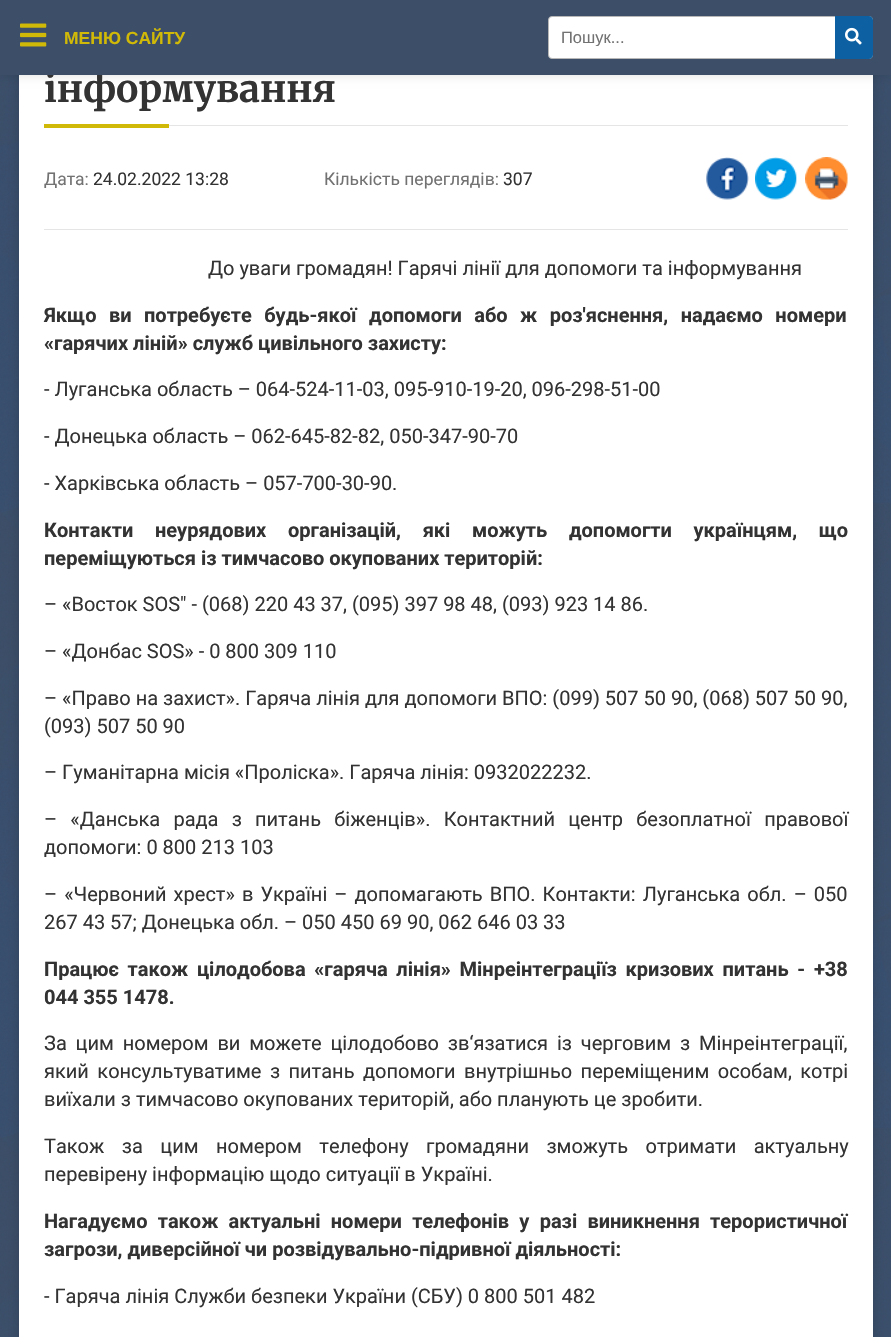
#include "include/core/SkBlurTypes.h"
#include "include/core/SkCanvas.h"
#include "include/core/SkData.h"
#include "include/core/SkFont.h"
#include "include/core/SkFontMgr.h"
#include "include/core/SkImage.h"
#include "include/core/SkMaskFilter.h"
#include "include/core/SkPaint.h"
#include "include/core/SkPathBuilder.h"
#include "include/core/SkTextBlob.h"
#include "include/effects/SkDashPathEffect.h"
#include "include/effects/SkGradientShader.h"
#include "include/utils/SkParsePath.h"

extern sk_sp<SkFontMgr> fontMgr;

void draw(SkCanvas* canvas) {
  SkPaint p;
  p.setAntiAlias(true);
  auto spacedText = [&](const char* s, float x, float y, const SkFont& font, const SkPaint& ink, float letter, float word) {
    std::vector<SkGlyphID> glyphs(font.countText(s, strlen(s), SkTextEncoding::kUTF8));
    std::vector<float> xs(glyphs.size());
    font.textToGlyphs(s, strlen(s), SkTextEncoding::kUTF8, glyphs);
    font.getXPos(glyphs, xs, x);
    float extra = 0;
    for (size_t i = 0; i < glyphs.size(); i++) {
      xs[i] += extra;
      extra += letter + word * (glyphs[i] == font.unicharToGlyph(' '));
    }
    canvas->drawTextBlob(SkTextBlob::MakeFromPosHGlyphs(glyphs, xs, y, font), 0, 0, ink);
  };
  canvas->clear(SkColorSetRGB(38, 79, 133));
  canvas->drawImageRect(SkImages::DeferredFromEncodedData(SkData::MakeFromFileName("images/1.png")), SkRect::MakeLTRB(0, 75, 891, 1337), SkSamplingOptions());
  p.setColor(SkColorSetARGB(38, 0, 0, 0));
  p.setMaskFilter(SkMaskFilter::MakeBlur(kNormal_SkBlurStyle, 6));
  canvas->drawRoundRect(SkRect::MakeLTRB(19, -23, 873, 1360), 5, 5, p);
  p.setMaskFilter(nullptr);
  p.setColor(SK_ColorWHITE);
  canvas->drawRect(SkRect::MakeLTRB(19, 75, 873, 1337), p);
  p.setColor(SkColorSetARGB(26, 0, 0, 0));
  p.setMaskFilter(SkMaskFilter::MakeBlur(kNormal_SkBlurStyle, 4.5f));
  canvas->drawRect(SkRect::MakeLTRB(0, 1, 891, 76), p);
  p.setMaskFilter(nullptr);
  p.setColor(SkColorSetRGB(229, 229, 229));
  canvas->drawRect(SkRect::MakeLTRB(169, 125, 848, 126), p);
  p.setColor(SkColorSetRGB(209, 185, 7));
  canvas->drawRect(SkRect::MakeLTRB(44, 124, 169, 128), p);
  canvas->drawImageRect(SkImages::DeferredFromEncodedData(SkData::MakeFromFileName("images/3.png")), SkRect::MakeLTRB(706, 157, 749, 200), SkSamplingOptions());
  canvas->drawImageRect(SkImages::DeferredFromEncodedData(SkData::MakeFromFileName("images/4.png")), SkRect::MakeLTRB(755, 157, 797, 200), SkSamplingOptions());
  canvas->drawImageRect(SkImages::DeferredFromEncodedData(SkData::MakeFromFileName("images/5.png")), SkRect::MakeLTRB(805, 157, 848, 200), SkSamplingOptions());
  p.setColor(SkColorSetRGB(229, 229, 229));
  canvas->drawRect(SkRect::MakeLTRB(44, 229, 848, 230), p);
  SkFont font1(fontMgr->matchFamilyStyle("Merriweather", SkFontStyle(300, SkFontStyle::kNormal_Width, SkFontStyle::kUpright_Slant)), 37.5f);
  font1.setSubpixel(true);
  p.setColor(SkColorSetRGB(51, 51, 51));
  canvas->drawString("інформування", 44, 102, font1, p);
  p.setColor(SkColorSetRGB(60, 78, 104));
  canvas->drawRect(SkRect::MakeLTRB(0, 0, 891, 75), p);
  canvas->drawImageRect(SkImages::DeferredFromEncodedData(SkData::MakeFromFileName("images/2.png")), SkRect::MakeLTRB(20, 23, 47, 47), SkSamplingOptions());
  SkFont font2(fontMgr->matchFamilyStyle("Liberation Sans", SkFontStyle::Bold()), 17.5f);
  font2.setSubpixel(true);
  p.setColor(SkColorSetRGB(209, 185, 7));
  canvas->drawString("МЕНЮ САЙТУ", 64, 44, font2, p);
  SkFont font3(fontMgr->matchFamilyStyle("Roboto", SkFontStyle::Normal()), 17.5f);
  font3.setSubpixel(true);
  p.setColor(SkColorSetRGB(114, 114, 114));
  canvas->drawString("Дата:", 44, 185, font3, p);
  p.setColor(SkColorSetRGB(51, 51, 51));
  canvas->drawString("24.02.2022 13:28", 93, 185, font3, p);
  p.setColor(SkColorSetRGB(114, 114, 114));
  canvas->drawString("Кількість переглядів:", 324, 185, font3, p);
  p.setColor(SkColorSetRGB(51, 51, 51));
  canvas->drawString("307", 503, 185, font3, p);
  SkFont font4(fontMgr->matchFamilyStyle("Roboto", SkFontStyle::Normal()), 20);
  font4.setSubpixel(true);
  canvas->drawString("До уваги громадян! Гарячі лінії для допомоги та інформування", 208, 275, font4, p);
  SkFont font5(fontMgr->matchFamilyStyle("Roboto", SkFontStyle::Bold()), 20);
  font5.setSubpixel(true);
  spacedText("Якщо ви потребуєте будь-якої допомоги або ж роз'яснення, надаємо номери", 44, 322, font5, p, 0, 7.5f);
  canvas->drawString("«гарячих ліній» служб цивільного захисту:", 44, 350, font5, p);
  canvas->drawString("- Луганська область – 064-524-11-03, 095-910-19-20, 096-298-51-00", 44, 396, font4, p);
  canvas->drawString("- Донецька область – 062-645-82-82, 050-347-90-70", 44, 443, font4, p);
  canvas->drawString("- Харківська область – 057-700-30-90.", 44, 490, font4, p);
  spacedText("Контакти неурядових організацій, які можуть допомогти українцям, що", 44, 537, font5, p, 0, 16.75f);
  canvas->drawString("переміщуються із тимчасово окупованих територій:", 44, 565, font5, p);
  canvas->drawString("– «Восток SOS\" - (068) 220 43 37, (095) 397 98 48, (093) 923 14 86.", 44, 611, font4, p);
  canvas->drawString("– «Донбас SOS» - 0 800 309 110", 44, 658, font4, p);
  canvas->drawString("– «Право на захист». Гаряча лінія для допомоги ВПО: (099) 507 50 90, (068) 507 50 90,", 44, 705, font4, p);
  canvas->drawString("(093) 507 50 90", 44, 733, font4, p);
  canvas->drawString("– Гуманітарна місія «Проліска». Гаряча лінія: 0932022232.", 44, 779, font4, p);
  spacedText("– «Данська рада з питань біженців». Контактний центр безоплатної правової", 44, 826, font4, p, 0, 8.25f);
  canvas->drawString("допомоги: 0 800 213 103", 44, 854, font4, p);
  spacedText("– «Червоний хрест» в Україні – допомагають ВПО. Контакти: Луганська обл. – 050", 44, 901, font4, p, 0, 2.1f);
  canvas->drawString("267 43 57; Донецька обл. – 050 450 69 90, 062 646 03 33", 44, 929, font4, p);
  spacedText("Працює також цілодобова «гаряча лінія» Мінреінтеграціїз кризових питань - +38", 44, 976, font5, p, 0, 3.75f);
  canvas->drawString("044 355 1478.", 44, 1004, font5, p);
  spacedText("За цим номером ви можете цілодобово зв‘язатися із черговим з Мінреінтеграції,", 44, 1050, font4, p, 0, 3.9f);
  spacedText("який консультуватиме з питань допомоги внутрішньо переміщеним особам, котрі", 44, 1078, font4, p, 0, 3.5f);
  canvas->drawString("виїхали з тимчасово окупованих територій, або планують це зробити.", 44, 1106, font4, p);
  spacedText("Також за цим номером телефону громадяни зможуть отримати актуальну", 44, 1153, font4, p, 0, 12.5f);
  canvas->drawString("перевірену інформацію щодо ситуації в Україні.", 44, 1181, font4, p);
  spacedText("Нагадуємо також актуальні номери телефонів у разі виникнення терористичної", 44, 1228, font5, p, 0, 5.25f);
  canvas->drawString("загрози, диверсійної чи розвідувально-підривної діяльності:", 44, 1256, font5, p);
  canvas->drawString("- Гаряча лінія Служби безпеки України (СБУ) 0 800 501 482", 44, 1303, font4, p);
  p.setColor(SK_ColorWHITE);
  canvas->drawRoundRect(SkRect::MakeLTRB(548.5f, 16.5f, 872.5f, 58.5f), 3.5f, 3.5f, p);
  p.setStyle(SkPaint::kStroke_Style);
  p.setStrokeWidth(1);
  p.setColor(SkColorSetRGB(183, 183, 183));
  canvas->drawRoundRect(SkRect::MakeLTRB(548.5f, 16.5f, 872.5f, 58.5f), 3.5f, 3.5f, p);
  canvas->save();
  canvas->clipRect(SkRect::MakeLTRB(561, 28, 821, 46));
  SkFont font6(fontMgr->matchFamilyStyle("Liberation Sans", SkFontStyle::Normal()), 16.5f);
  font6.setSubpixel(true);
  p.setStyle(SkPaint::kFill_Style);
  p.setColor(SkColorSetRGB(114, 114, 114));
  canvas->drawString("Пошук...", 561, 43, font6, p);
  canvas->restore();
  p.setColor(SkColorSetRGB(13, 97, 162));
  canvas->drawPath(SkPathBuilder().moveTo(835, 16).lineTo(869, 16).cubicTo(871, 16, 873, 18, 873, 20).lineTo(873, 55).cubicTo(873, 57, 871, 59, 869, 59).lineTo(835, 59).close().detach(), p);
  canvas->drawImageRect(SkImages::DeferredFromEncodedData(SkData::MakeFromFileName("images/6.png")), SkRect::MakeLTRB(845, 27, 862, 45), SkSamplingOptions());
}
